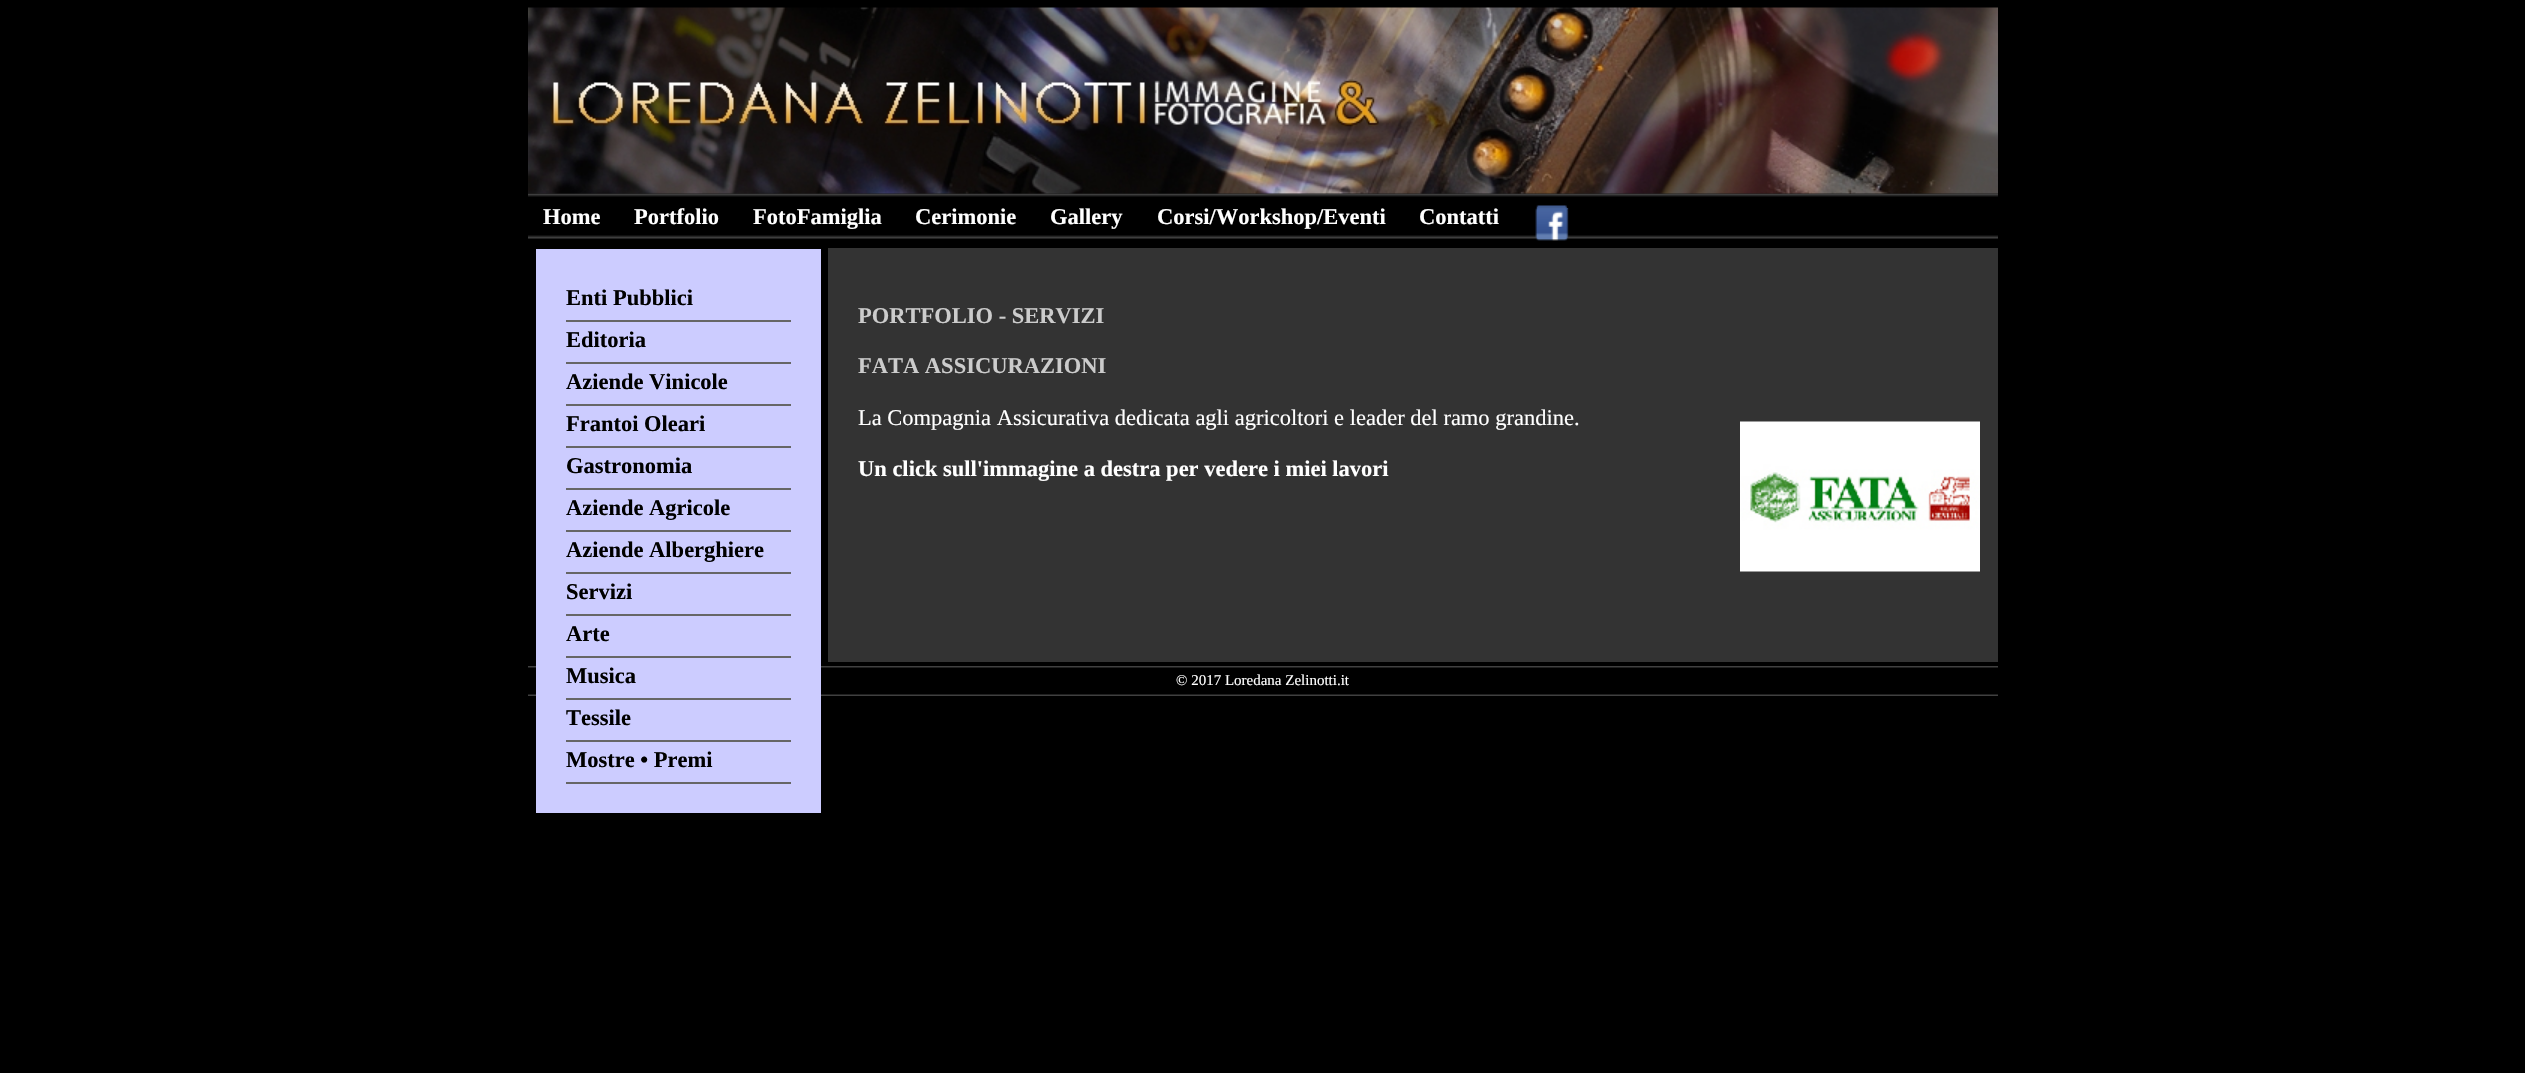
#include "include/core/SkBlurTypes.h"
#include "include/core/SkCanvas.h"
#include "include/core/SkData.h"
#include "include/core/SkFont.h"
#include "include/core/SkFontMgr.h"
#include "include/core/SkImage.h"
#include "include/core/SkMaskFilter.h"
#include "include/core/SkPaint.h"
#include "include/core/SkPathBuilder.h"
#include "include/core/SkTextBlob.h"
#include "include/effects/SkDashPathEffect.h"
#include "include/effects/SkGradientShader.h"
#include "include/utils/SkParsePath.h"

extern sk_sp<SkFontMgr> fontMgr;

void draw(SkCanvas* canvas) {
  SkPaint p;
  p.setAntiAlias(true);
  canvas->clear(SK_ColorBLACK);
  canvas->drawImageRect(SkImages::DeferredFromEncodedData(SkData::MakeFromFileName("images/2.png")), SkRect::MakeLTRB(528, 193, 1998, 239), SkSamplingOptions());
  canvas->drawImageRect(SkImages::DeferredFromEncodedData(SkData::MakeFromFileName("images/1.png")), SkRect::MakeLTRB(528, 7, 1998, 194), SkSamplingOptions());
  canvas->drawImageRect(SkImages::DeferredFromEncodedData(SkData::MakeFromFileName("images/3.png")), SkRect::MakeLTRB(1535, 205, 1569, 241), SkSamplingOptions());
  canvas->drawImageRect(SkImages::DeferredFromEncodedData(SkData::MakeFromFileName("images/5.png")), SkRect::MakeLTRB(528, 666, 1998, 696), SkSamplingOptions());
  p.setColor(SkColorSetRGB(204, 204, 255));
  canvas->drawRect(SkRect::MakeLTRB(536, 249, 821, 813), p);
  p.setColor(SkColorSetRGB(102, 102, 102));
  canvas->drawRect(SkRect::MakeLTRB(566, 320, 791, 322), p);
  canvas->drawRect(SkRect::MakeLTRB(566, 362, 791, 364), p);
  canvas->drawRect(SkRect::MakeLTRB(566, 404, 791, 406), p);
  canvas->drawRect(SkRect::MakeLTRB(566, 446, 791, 448), p);
  canvas->drawRect(SkRect::MakeLTRB(566, 488, 791, 490), p);
  canvas->drawRect(SkRect::MakeLTRB(566, 530, 791, 532), p);
  canvas->drawRect(SkRect::MakeLTRB(566, 572, 791, 574), p);
  canvas->drawRect(SkRect::MakeLTRB(566, 614, 791, 616), p);
  canvas->drawRect(SkRect::MakeLTRB(566, 656, 791, 658), p);
  canvas->drawRect(SkRect::MakeLTRB(566, 698, 791, 700), p);
  canvas->drawRect(SkRect::MakeLTRB(566, 740, 791, 742), p);
  canvas->drawRect(SkRect::MakeLTRB(566, 782, 791, 784), p);
  p.setColor(SkColorSetRGB(51, 51, 51));
  canvas->drawRect(SkRect::MakeLTRB(828, 248, 1998, 662), p);
  canvas->drawImageRect(SkImages::DeferredFromEncodedData(SkData::MakeFromFileName("images/4.png")), SkRect::MakeLTRB(1740, 421, 1980, 572), SkSamplingOptions());
  SkFont font1(fontMgr->matchFamilyStyle("Liberation Serif", SkFontStyle::Bold()), 22.5f);
  font1.setSubpixel(true);
  p.setColor(SK_ColorWHITE);
  canvas->drawString("Home", 543, 224, font1, p);
  canvas->drawString("Portfolio", 634, 224, font1, p);
  canvas->drawString("FotoFamiglia", 753, 224, font1, p);
  canvas->drawString("Cerimonie", 915, 224, font1, p);
  canvas->drawString("Gallery", 1050, 224, font1, p);
  canvas->drawString("Corsi/Workshop/Eventi", 1157, 224, font1, p);
  canvas->drawString("Contatti", 1419, 224, font1, p);
  p.setColor(SK_ColorBLACK);
  canvas->drawString("Enti Pubblici", 566, 305, font1, p);
  canvas->drawString("Editoria", 566, 347, font1, p);
  canvas->drawString("Aziende Vinicole", 566, 389, font1, p);
  canvas->drawString("Frantoi Oleari", 566, 431, font1, p);
  canvas->drawString("Gastronomia", 566, 473, font1, p);
  canvas->drawString("Aziende Agricole", 566, 515, font1, p);
  canvas->drawString("Aziende Alberghiere", 566, 557, font1, p);
  canvas->drawString("Servizi", 566, 599, font1, p);
  canvas->drawString("Arte", 566, 641, font1, p);
  canvas->drawString("Musica", 566, 683, font1, p);
  canvas->drawString("Tessile", 566, 725, font1, p);
  canvas->drawString("Mostre • Premi", 566, 767, font1, p);
  p.setColor(SkColorSetRGB(204, 204, 204));
  canvas->drawString("PORTFOLIO - SERVIZI", 858, 323, font1, p);
  canvas->drawString("FATA ASSICURAZIONI", 858, 373, font1, p);
  SkFont font2(fontMgr->matchFamilyStyle("Liberation Serif", SkFontStyle::Normal()), 22.5f);
  font2.setSubpixel(true);
  p.setColor(SK_ColorWHITE);
  canvas->drawString("La Compagnia Assicurativa dedicata agli agricoltori e leader del ramo grandine.", 858, 425, font2, p);
  canvas->drawString("Un click sull'immagine a destra per vedere i miei lavori", 858, 476, font1, p);
  SkFont font3(fontMgr->matchFamilyStyle("Liberation Serif", SkFontStyle::Normal()), 15);
  font3.setSubpixel(true);
  canvas->drawString("© 2017 Loredana Zelinotti.it", 1176, 685, font3, p);
}
